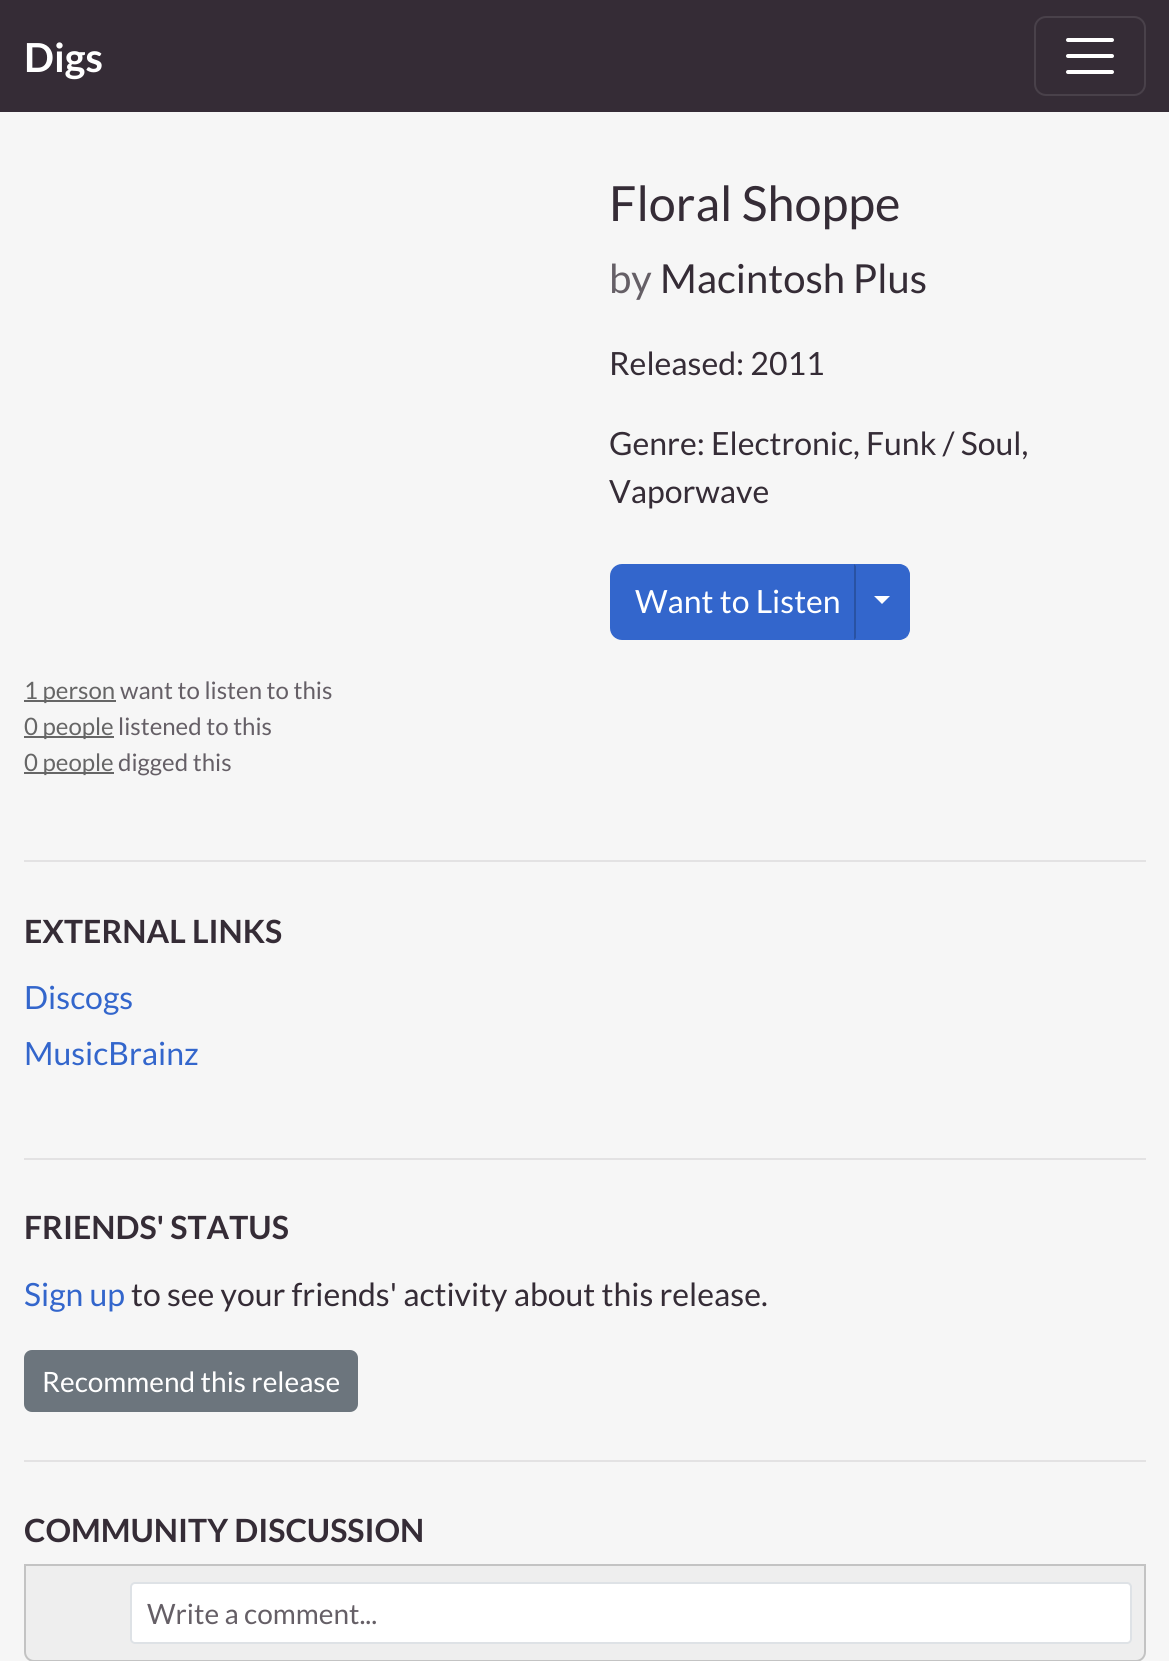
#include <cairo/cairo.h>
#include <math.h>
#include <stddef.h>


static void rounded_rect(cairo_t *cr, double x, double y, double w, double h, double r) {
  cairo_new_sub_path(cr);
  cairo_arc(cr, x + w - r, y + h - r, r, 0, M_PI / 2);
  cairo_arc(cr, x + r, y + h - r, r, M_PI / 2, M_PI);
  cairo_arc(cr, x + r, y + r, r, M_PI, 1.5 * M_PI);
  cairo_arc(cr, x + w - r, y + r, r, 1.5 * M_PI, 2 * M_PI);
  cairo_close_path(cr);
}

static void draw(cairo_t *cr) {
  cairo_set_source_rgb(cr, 246 / 255.0, 246 / 255.0, 246 / 255.0);
  cairo_paint(cr);
  cairo_set_source_rgb(cr, 53 / 255.0, 44 / 255.0, 54 / 255.0);
  cairo_rectangle(cr, 0, 0, 1169, 112);
  cairo_fill(cr);
  rounded_rect(cr, 1035, 17, 110, 78, 11);
  cairo_set_source_rgb(cr, 73 / 255.0, 65 / 255.0, 74 / 255.0);
  cairo_stroke(cr);
  cairo_new_path(cr);
  cairo_move_to(cr, 1068, 40);
  cairo_line_to(cr, 1112, 40);
  cairo_move_to(cr, 1068, 56);
  cairo_line_to(cr, 1112, 56);
  cairo_move_to(cr, 1068, 72);
  cairo_line_to(cr, 1112, 72);
  cairo_set_source_rgb(cr, 1, 1, 1);
  cairo_set_line_width(cr, 4);
  cairo_set_line_cap(cr, CAIRO_LINE_CAP_ROUND);
  cairo_stroke(cr);
  cairo_set_source_rgb(cr, 51 / 255.0, 102 / 255.0, 204 / 255.0);
  rounded_rect(cr, 611, 565, 254, 74, 11);
  cairo_fill_preserve(cr);
  cairo_set_line_width(cr, 2);
  cairo_set_line_cap(cr, CAIRO_LINE_CAP_BUTT);
  cairo_stroke(cr);
  cairo_new_path(cr);
  cairo_move_to(cr, 854, 564);
  cairo_line_to(cr, 898, 564);
  cairo_curve_to(cr, 904.5, 564, 910, 569.5, 910, 576);
  cairo_line_to(cr, 910, 628);
  cairo_curve_to(cr, 910, 634.5, 904.5, 640, 898, 640);
  cairo_line_to(cr, 854, 640);
  cairo_close_path(cr);
  cairo_fill(cr);
  cairo_new_path(cr);
  cairo_move_to(cr, 854, 564);
  cairo_line_to(cr, 856, 566);
  cairo_line_to(cr, 898, 566);
  cairo_curve_to(cr, 901, 566, 904, 567, 905, 569);
  cairo_line_to(cr, 907, 567);
  cairo_curve_to(cr, 904, 565, 902, 564, 898, 564);
  cairo_close_path(cr);
  cairo_fill(cr);
  cairo_new_path(cr);
  cairo_move_to(cr, 910, 628);
  cairo_line_to(cr, 910, 576);
  cairo_curve_to(cr, 910, 572, 909, 570, 907, 567);
  cairo_line_to(cr, 905, 569);
  cairo_curve_to(cr, 907, 570, 908, 573, 908, 576);
  cairo_line_to(cr, 908, 628);
  cairo_curve_to(cr, 908, 631, 907, 634, 905, 635);
  cairo_line_to(cr, 907, 637);
  cairo_curve_to(cr, 909, 634, 910, 632, 910, 628);
  cairo_close_path(cr);
  cairo_fill(cr);
  cairo_new_path(cr);
  cairo_move_to(cr, 898, 640);
  cairo_curve_to(cr, 902, 640, 904, 639, 907, 637);
  cairo_line_to(cr, 905, 635);
  cairo_curve_to(cr, 904, 637, 901, 638, 898, 638);
  cairo_line_to(cr, 856, 638);
  cairo_line_to(cr, 854, 640);
  cairo_close_path(cr);
  cairo_fill(cr);
  cairo_set_source_rgb(cr, 41 / 255.0, 82 / 255.0, 163 / 255.0);
  cairo_new_path(cr);
  cairo_move_to(cr, 856, 566);
  cairo_line_to(cr, 854, 564);
  cairo_line_to(cr, 854, 640);
  cairo_line_to(cr, 856, 638);
  cairo_close_path(cr);
  cairo_fill(cr);
  cairo_set_source_rgb(cr, 1, 1, 1);
  cairo_new_path(cr);
  cairo_move_to(cr, 874, 596);
  cairo_line_to(cr, 890, 596);
  cairo_line_to(cr, 882, 604);
  cairo_close_path(cr);
  cairo_fill(cr);
  cairo_set_source_rgb(cr, 102 / 255.0, 102 / 255.0, 102 / 255.0);
  cairo_rectangle(cr, 24, 700, 92, 2);
  cairo_fill(cr);
  cairo_rectangle(cr, 24, 736, 90, 2);
  cairo_fill(cr);
  cairo_rectangle(cr, 24, 772, 90, 2);
  cairo_fill(cr);
  cairo_set_source_rgb(cr, 227 / 255.0, 226 / 255.0, 227 / 255.0);
  cairo_rectangle(cr, 24, 860, 1122, 2);
  cairo_fill(cr);
  cairo_rectangle(cr, 24, 1158, 1122, 2);
  cairo_fill(cr);
  cairo_set_source_rgb(cr, 108 / 255.0, 117 / 255.0, 125 / 255.0);
  rounded_rect(cr, 25, 1351, 332, 60, 7);
  cairo_fill_preserve(cr);
  cairo_stroke(cr);
  cairo_set_source_rgb(cr, 227 / 255.0, 226 / 255.0, 227 / 255.0);
  cairo_rectangle(cr, 24, 1460, 1122, 2);
  cairo_fill(cr);
  cairo_set_source_rgb(cr, 238 / 255.0, 238 / 255.0, 238 / 255.0);
  cairo_new_path(cr);
  cairo_move_to(cr, 24, 1564);
  cairo_line_to(cr, 1146, 1564);
  cairo_line_to(cr, 1146, 1652);
  cairo_curve_to(cr, 1146, 1657.5, 1141.5, 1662, 1136, 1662);
  cairo_line_to(cr, 34, 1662);
  cairo_curve_to(cr, 28.5, 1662, 24, 1657.5, 24, 1652);
  cairo_close_path(cr);
  cairo_fill(cr);
  cairo_new_path(cr);
  cairo_move_to(cr, 25, 1565);
  cairo_line_to(cr, 1145, 1565);
  cairo_line_to(cr, 1145, 1652);
  cairo_curve_to(cr, 1145, 1657, 1141, 1661, 1136, 1661);
  cairo_line_to(cr, 34, 1661);
  cairo_curve_to(cr, 29, 1661, 25, 1657, 25, 1652);
  cairo_close_path(cr);
  cairo_set_source_rgba(cr, 0, 0, 0, 0.18);
  cairo_stroke(cr);
  cairo_set_source_rgb(cr, 1, 1, 1);
  rounded_rect(cr, 131, 1583, 1000, 60, 4);
  cairo_fill_preserve(cr);
  cairo_set_source_rgb(cr, 222 / 255.0, 226 / 255.0, 230 / 255.0);
  cairo_stroke(cr);
  cairo_select_font_face(cr, "Lato", CAIRO_FONT_SLANT_NORMAL, CAIRO_FONT_WEIGHT_BOLD);
  cairo_set_font_size(cr, 40);
  cairo_set_source_rgb(cr, 1, 1, 1);
  cairo_move_to(cr, 24, 72);
  cairo_show_text(cr, "Digs");
  cairo_select_font_face(cr, "Lato", CAIRO_FONT_SLANT_NORMAL, CAIRO_FONT_WEIGHT_NORMAL);
  cairo_set_font_size(cr, 48.5);
  cairo_set_source_rgb(cr, 53 / 255.0, 44 / 255.0, 54 / 255.0);
  cairo_move_to(cr, 609, 221);
  cairo_show_text(cr, "Floral Shoppe");
  cairo_set_font_size(cr, 40);
  cairo_set_source_rgb(cr, 101 / 255.0, 95 / 255.0, 102 / 255.0);
  cairo_move_to(cr, 609, 293);
  cairo_show_text(cr, "by");
  cairo_set_source_rgb(cr, 53 / 255.0, 44 / 255.0, 54 / 255.0);
  cairo_move_to(cr, 660, 293);
  cairo_show_text(cr, "Macintosh Plus");
  cairo_set_font_size(cr, 32);
  cairo_move_to(cr, 609, 375);
  cairo_show_text(cr, "Released: 2011");
  cairo_move_to(cr, 609, 455);
  cairo_show_text(cr, "Genre: Electronic, Funk / Soul,");
  cairo_move_to(cr, 609, 503);
  cairo_show_text(cr, "Vaporwave");
  cairo_set_source_rgb(cr, 1, 1, 1);
  cairo_move_to(cr, 635, 613);
  cairo_show_text(cr, "Want to Listen");
  cairo_set_font_size(cr, 24);
  cairo_set_source_rgb(cr, 102 / 255.0, 102 / 255.0, 102 / 255.0);
  cairo_move_to(cr, 24, 699);
  cairo_show_text(cr, "1 person");
  cairo_set_source_rgb(cr, 101 / 255.0, 95 / 255.0, 102 / 255.0);
  cairo_move_to(cr, 120, 699);
  cairo_show_text(cr, "want to listen to this");
  cairo_set_source_rgb(cr, 102 / 255.0, 102 / 255.0, 102 / 255.0);
  cairo_move_to(cr, 24, 735);
  cairo_show_text(cr, "0 people");
  cairo_set_source_rgb(cr, 101 / 255.0, 95 / 255.0, 102 / 255.0);
  cairo_move_to(cr, 118, 735);
  cairo_show_text(cr, "listened to this");
  cairo_set_source_rgb(cr, 102 / 255.0, 102 / 255.0, 102 / 255.0);
  cairo_move_to(cr, 24, 771);
  cairo_show_text(cr, "0 people");
  cairo_set_source_rgb(cr, 101 / 255.0, 95 / 255.0, 102 / 255.0);
  cairo_move_to(cr, 118, 771);
  cairo_show_text(cr, "digged this");
  cairo_select_font_face(cr, "Lato", CAIRO_FONT_SLANT_NORMAL, CAIRO_FONT_WEIGHT_BOLD);
  cairo_set_font_size(cr, 32);
  cairo_set_source_rgb(cr, 53 / 255.0, 44 / 255.0, 54 / 255.0);
  cairo_move_to(cr, 24, 943);
  cairo_show_text(cr, "EXTERNAL LINKS");
  cairo_select_font_face(cr, "Lato", CAIRO_FONT_SLANT_NORMAL, CAIRO_FONT_WEIGHT_NORMAL);
  cairo_set_source_rgb(cr, 51 / 255.0, 102 / 255.0, 204 / 255.0);
  cairo_move_to(cr, 24, 1009);
  cairo_show_text(cr, "Discogs");
  cairo_move_to(cr, 24, 1065);
  cairo_show_text(cr, "MusicBrainz");
  cairo_select_font_face(cr, "Lato", CAIRO_FONT_SLANT_NORMAL, CAIRO_FONT_WEIGHT_BOLD);
  cairo_set_source_rgb(cr, 53 / 255.0, 44 / 255.0, 54 / 255.0);
  cairo_move_to(cr, 24, 1239);
  cairo_show_text(cr, "FRIENDS' STATUS");
  cairo_select_font_face(cr, "Lato", CAIRO_FONT_SLANT_NORMAL, CAIRO_FONT_WEIGHT_NORMAL);
  cairo_set_source_rgb(cr, 51 / 255.0, 102 / 255.0, 204 / 255.0);
  cairo_move_to(cr, 24, 1306);
  cairo_show_text(cr, "Sign up");
  cairo_set_source_rgb(cr, 53 / 255.0, 44 / 255.0, 54 / 255.0);
  cairo_move_to(cr, 131, 1306);
  cairo_show_text(cr, "to see your friends' activity about this release.");
  cairo_set_font_size(cr, 28);
  cairo_set_source_rgb(cr, 1, 1, 1);
  cairo_move_to(cr, 42, 1392);
  cairo_show_text(cr, "Recommend this release");
  cairo_select_font_face(cr, "Lato", CAIRO_FONT_SLANT_NORMAL, CAIRO_FONT_WEIGHT_BOLD);
  cairo_set_font_size(cr, 32);
  cairo_set_source_rgb(cr, 53 / 255.0, 44 / 255.0, 54 / 255.0);
  cairo_move_to(cr, 24, 1542);
  cairo_show_text(cr, "COMMUNITY DISCUSSION");
  cairo_select_font_face(cr, "Lato", CAIRO_FONT_SLANT_NORMAL, CAIRO_FONT_WEIGHT_NORMAL);
  cairo_set_font_size(cr, 28);
  cairo_set_source_rgb(cr, 101 / 255.0, 95 / 255.0, 102 / 255.0);
  cairo_move_to(cr, 147, 1624);
  cairo_show_text(cr, "Write a comment...");
}

int main(void) {
  cairo_surface_t *surface = cairo_image_surface_create(CAIRO_FORMAT_RGB24, 1169, 1661);
  cairo_t *cr = cairo_create(surface);
  cairo_font_options_t *options = cairo_font_options_create();
  cairo_font_options_set_hint_metrics(options, CAIRO_HINT_METRICS_OFF);
  cairo_font_options_set_hint_style(options, CAIRO_HINT_STYLE_NONE);
  cairo_set_font_options(cr, options);
  cairo_set_miter_limit(cr, 4);
  draw(cr);
  cairo_surface_write_to_png(surface, "out.png");
  cairo_font_options_destroy(options);
  cairo_destroy(cr);
  cairo_surface_destroy(surface);
  return 0;
}
